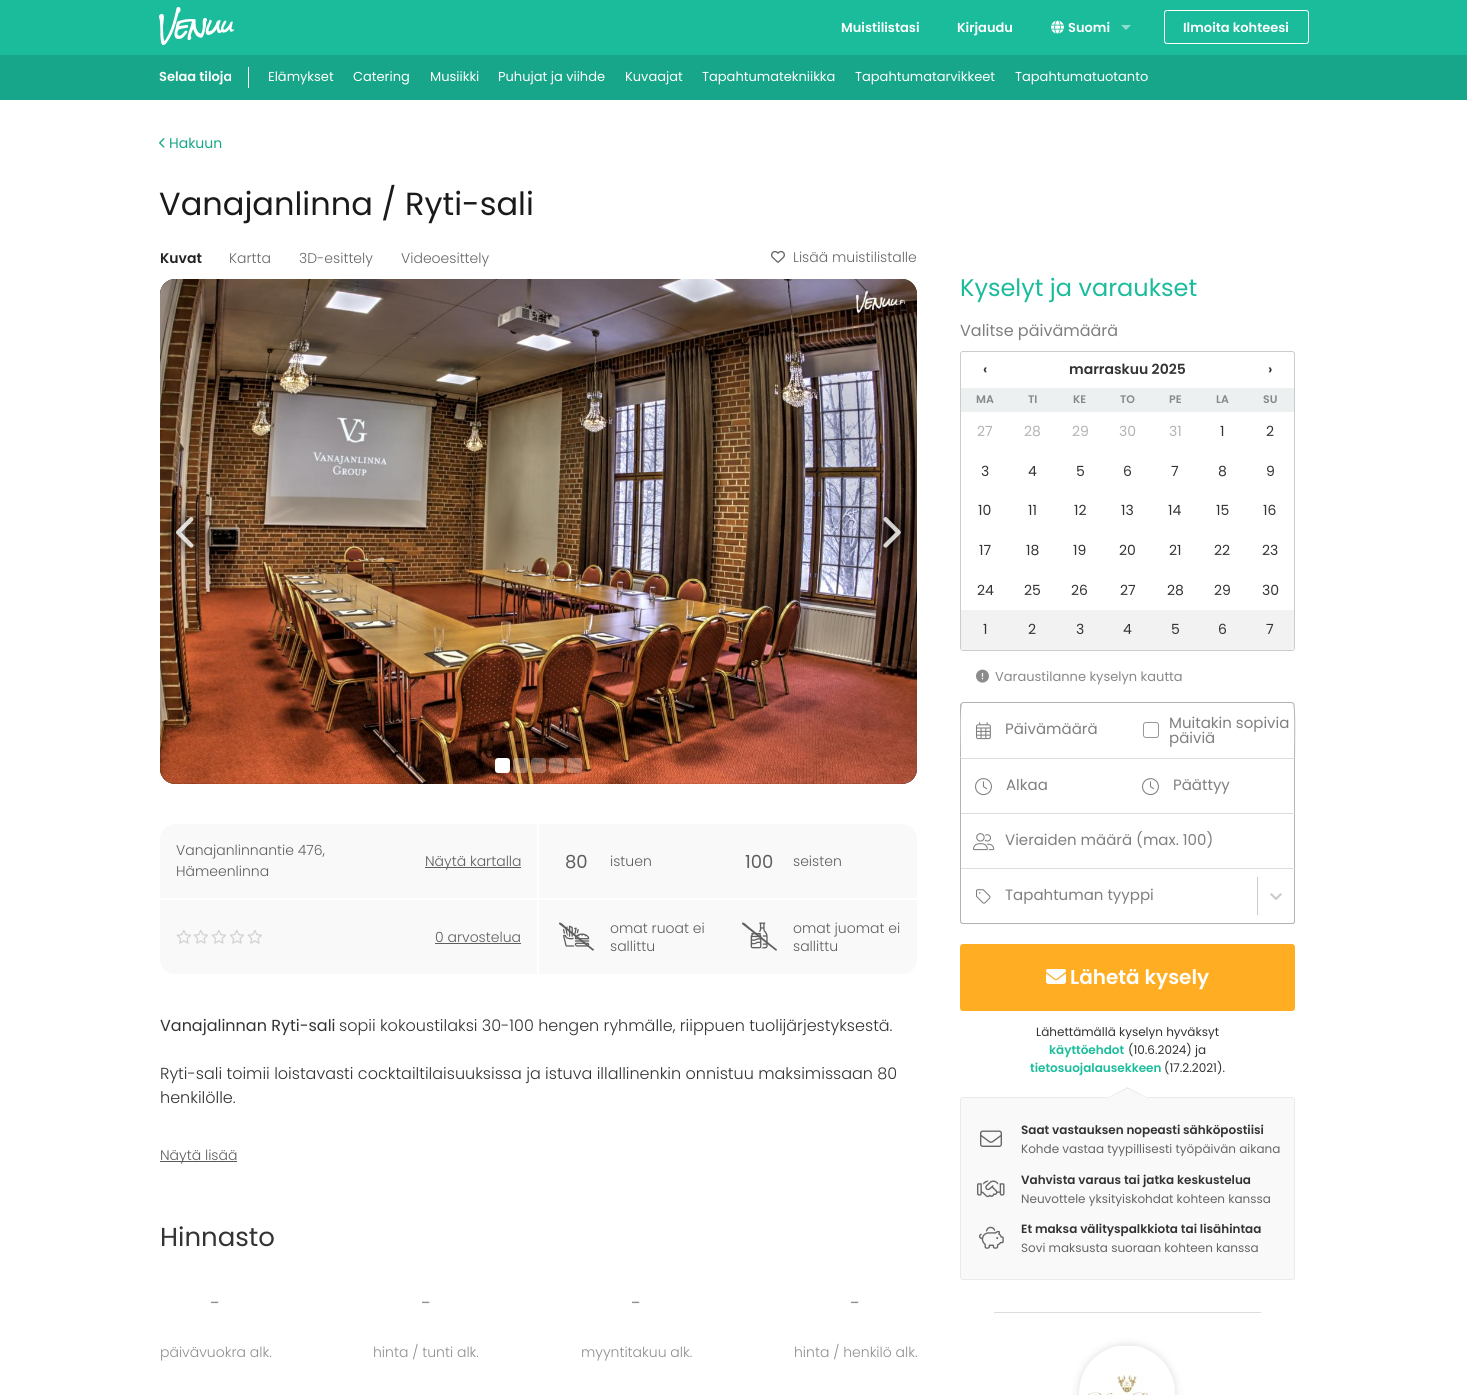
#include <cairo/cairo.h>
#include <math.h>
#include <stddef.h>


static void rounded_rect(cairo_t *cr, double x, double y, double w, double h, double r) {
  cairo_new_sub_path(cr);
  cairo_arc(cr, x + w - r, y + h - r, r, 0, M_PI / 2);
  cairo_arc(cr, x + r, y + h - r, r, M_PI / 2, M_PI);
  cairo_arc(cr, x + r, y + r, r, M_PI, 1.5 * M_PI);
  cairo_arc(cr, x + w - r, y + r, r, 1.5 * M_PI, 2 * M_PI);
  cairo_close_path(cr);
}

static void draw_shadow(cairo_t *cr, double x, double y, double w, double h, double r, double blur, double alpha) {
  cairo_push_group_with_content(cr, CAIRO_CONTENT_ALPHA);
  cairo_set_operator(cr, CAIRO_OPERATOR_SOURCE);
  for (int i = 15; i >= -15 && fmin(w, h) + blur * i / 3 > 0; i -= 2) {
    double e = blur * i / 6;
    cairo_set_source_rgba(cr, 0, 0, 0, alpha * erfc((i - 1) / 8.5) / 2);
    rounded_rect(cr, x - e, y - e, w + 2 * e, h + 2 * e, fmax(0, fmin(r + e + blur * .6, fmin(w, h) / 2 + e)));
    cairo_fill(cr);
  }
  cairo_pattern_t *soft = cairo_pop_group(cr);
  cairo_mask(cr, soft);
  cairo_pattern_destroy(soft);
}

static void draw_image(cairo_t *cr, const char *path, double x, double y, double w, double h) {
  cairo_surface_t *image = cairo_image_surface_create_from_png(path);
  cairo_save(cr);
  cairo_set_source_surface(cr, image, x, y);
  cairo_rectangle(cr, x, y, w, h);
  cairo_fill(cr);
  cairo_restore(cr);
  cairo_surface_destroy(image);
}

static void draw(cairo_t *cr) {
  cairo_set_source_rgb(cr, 1, 1, 1);
  cairo_paint(cr);
  cairo_set_source_rgb(cr, 26 / 255.0, 188 / 255.0, 156 / 255.0);
  cairo_rectangle(cr, 0, 0, 1467, 55);
  cairo_fill(cr);
  draw_image(cr, "images/1.png", 159, 7, 75, 38);
  draw_image(cr, "images/2.png", 1051, 20, 13, 14);
  cairo_set_source_rgb(cr, 141 / 255.0, 222 / 255.0, 206 / 255.0);
  cairo_new_path(cr);
  cairo_move_to(cr, 1121, 25);
  cairo_line_to(cr, 1131, 25);
  cairo_line_to(cr, 1126, 30);
  cairo_close_path(cr);
  cairo_fill(cr);
  rounded_rect(cr, 1164.5, 10.5, 144, 33, 2.5);
  cairo_set_source_rgb(cr, 1, 1, 1);
  cairo_set_line_width(cr, 1);
  cairo_stroke(cr);
  cairo_set_source_rgb(cr, 23 / 255.0, 166 / 255.0, 137 / 255.0);
  cairo_rectangle(cr, 0, 55, 1467, 45);
  cairo_fill(cr);
  cairo_set_source_rgb(cr, 1, 1, 1);
  cairo_rectangle(cr, 248, 67, 1, 21);
  cairo_fill(cr);
  draw_image(cr, "images/3.png", 159, 138, 6, 10);
  draw_image(cr, "images/4.png", 771, 250, 14, 13);
  cairo_set_source_rgb(cr, 34 / 255.0, 34 / 255.0, 34 / 255.0);
  rounded_rect(cr, 160, 279, 757, 505, 15);
  cairo_fill(cr);
  draw_image(cr, "images/5.png", 160, 279, 757, 505);
  draw_image(cr, "images/6.png", 176, 517, 18, 31);
  draw_image(cr, "images/7.png", 883, 517, 18, 31);
  cairo_set_source_rgb(cr, 1, 1, 1);
  rounded_rect(cr, 495, 758, 15, 15, 3);
  cairo_fill(cr);
  cairo_set_source_rgba(cr, 1, 1, 1, 0.3);
  rounded_rect(cr, 513, 758, 15, 15, 3);
  cairo_fill(cr);
  rounded_rect(cr, 531, 758, 15, 15, 3);
  cairo_fill(cr);
  rounded_rect(cr, 549, 758, 15, 15, 3);
  cairo_fill(cr);
  rounded_rect(cr, 567, 758, 15, 15, 3);
  cairo_fill(cr);
  cairo_set_source_rgb(cr, 249 / 255.0, 249 / 255.0, 249 / 255.0);
  cairo_new_path(cr);
  cairo_move_to(cr, 175, 824);
  cairo_line_to(cr, 537, 824);
  cairo_line_to(cr, 537, 898);
  cairo_line_to(cr, 160, 898);
  cairo_line_to(cr, 160, 839);
  cairo_curve_to(cr, 160, 830.5, 166.5, 824, 175, 824);
  cairo_close_path(cr);
  cairo_fill(cr);
  cairo_set_source_rgb(cr, 94 / 255.0, 94 / 255.0, 94 / 255.0);
  cairo_rectangle(cr, 425, 867, 96, 1);
  cairo_fill(cr);
  cairo_set_source_rgb(cr, 249 / 255.0, 249 / 255.0, 249 / 255.0);
  cairo_new_path(cr);
  cairo_move_to(cr, 539, 824);
  cairo_line_to(cr, 902, 824);
  cairo_curve_to(cr, 910.5, 824, 917, 830.5, 917, 839);
  cairo_line_to(cr, 917, 898);
  cairo_line_to(cr, 539, 898);
  cairo_close_path(cr);
  cairo_fill(cr);
  cairo_new_path(cr);
  cairo_move_to(cr, 160, 900);
  cairo_line_to(cr, 537, 900);
  cairo_line_to(cr, 537, 974);
  cairo_line_to(cr, 175, 974);
  cairo_curve_to(cr, 166.5, 974, 160, 967.5, 160, 959);
  cairo_close_path(cr);
  cairo_fill(cr);
  draw_image(cr, "images/8.png", 176, 929, 15, 15);
  draw_image(cr, "images/8.png", 193, 929, 15, 15);
  draw_image(cr, "images/8.png", 211, 929, 15, 15);
  draw_image(cr, "images/8.png", 229, 929, 15, 15);
  draw_image(cr, "images/8.png", 247, 929, 15, 15);
  cairo_set_source_rgb(cr, 94 / 255.0, 94 / 255.0, 94 / 255.0);
  cairo_rectangle(cr, 435, 943, 86, 1);
  cairo_fill(cr);
  cairo_set_source_rgb(cr, 249 / 255.0, 249 / 255.0, 249 / 255.0);
  cairo_new_path(cr);
  cairo_move_to(cr, 539, 900);
  cairo_line_to(cr, 917, 900);
  cairo_line_to(cr, 917, 959);
  cairo_curve_to(cr, 917, 967.5, 910.5, 974, 902, 974);
  cairo_line_to(cr, 539, 974);
  cairo_close_path(cr);
  cairo_fill(cr);
  draw_image(cr, "images/9.png", 563, 925, 27, 22);
  cairo_set_source_rgb(cr, 94 / 255.0, 94 / 255.0, 94 / 255.0);
  cairo_new_path(cr);
  cairo_move_to(cr, 559, 923);
  cairo_curve_to(cr, 560.5, 921, 565, 926.5, 566, 927);
  cairo_line_to(cr, 594, 949.5);
  cairo_line_to(cr, 594, 950);
  cairo_line_to(cr, 593.5, 950.5);
  cairo_line_to(cr, 592.5, 950.5);
  cairo_line_to(cr, 559, 924);
  cairo_close_path(cr);
  cairo_fill(cr);
  draw_image(cr, "images/10.png", 750, 922, 18, 27);
  cairo_new_path(cr);
  cairo_move_to(cr, 742, 923);
  cairo_curve_to(cr, 743.5, 921, 748, 926.5, 749, 927);
  cairo_line_to(cr, 777, 949.5);
  cairo_line_to(cr, 777, 950);
  cairo_line_to(cr, 776.5, 950.5);
  cairo_line_to(cr, 775.5, 950.5);
  cairo_line_to(cr, 742, 924);
  cairo_close_path(cr);
  cairo_fill(cr);
  cairo_set_source_rgb(cr, 90 / 255.0, 90 / 255.0, 90 / 255.0);
  cairo_rectangle(cr, 160, 1161, 77, 1);
  cairo_fill(cr);
  rounded_rect(cr, 960.5, 351.5, 334, 299, 2.5);
  cairo_set_source_rgb(cr, 204 / 255.0, 204 / 255.0, 204 / 255.0);
  cairo_stroke(cr);
  cairo_set_source_rgb(cr, 236 / 255.0, 240 / 255.0, 241 / 255.0);
  cairo_rectangle(cr, 961, 388, 333, 24);
  cairo_fill(cr);
  cairo_set_source_rgb(cr, 242 / 255.0, 242 / 255.0, 242 / 255.0);
  cairo_rectangle(cr, 961, 610, 333, 40);
  cairo_fill(cr);
  draw_image(cr, "images/11.png", 976, 669, 13, 14);
  cairo_set_source_rgb(cr, 179 / 255.0, 179 / 255.0, 179 / 255.0);
  cairo_new_path(cr);
  cairo_move_to(cr, 963, 702);
  cairo_line_to(cr, 961, 703);
  cairo_line_to(cr, 962, 704);
  cairo_line_to(cr, 963, 703);
  cairo_line_to(cr, 1127, 703);
  cairo_line_to(cr, 1127, 702);
  cairo_close_path(cr);
  cairo_fill(cr);
  cairo_new_path(cr);
  cairo_move_to(cr, 960, 758);
  cairo_line_to(cr, 961, 757);
  cairo_curve_to(cr, 961, 751, 960, 705, 962, 704);
  cairo_line_to(cr, 961, 703);
  cairo_line_to(cr, 960, 705);
  cairo_close_path(cr);
  cairo_fill(cr);
  draw_image(cr, "images/12.png", 976, 722, 15, 18);
  cairo_new_path(cr);
  cairo_move_to(cr, 1127, 702);
  cairo_line_to(cr, 1127, 703);
  cairo_line_to(cr, 1292, 703);
  cairo_line_to(cr, 1293, 704);
  cairo_line_to(cr, 1294, 703);
  cairo_line_to(cr, 1292, 702);
  cairo_close_path(cr);
  cairo_fill(cr);
  cairo_new_path(cr);
  cairo_move_to(cr, 1294, 757);
  cairo_curve_to(cr, 1294, 751, 1295, 705, 1293, 704);
  cairo_line_to(cr, 1294, 703);
  cairo_curve_to(cr, 1296, 705, 1295, 752, 1295, 758);
  cairo_close_path(cr);
  cairo_fill(cr);
  rounded_rect(cr, 1143.5, 722.5, 15, 15, 2.5);
  cairo_set_source_rgb(cr, 151 / 255.0, 151 / 255.0, 151 / 255.0);
  cairo_stroke(cr);
  cairo_set_source_rgb(cr, 221 / 255.0, 221 / 255.0, 221 / 255.0);
  cairo_rectangle(cr, 960, 758, 335, 1);
  cairo_fill(cr);
  cairo_set_source_rgb(cr, 179 / 255.0, 179 / 255.0, 179 / 255.0);
  cairo_rectangle(cr, 1294, 758, 1, 111);
  cairo_fill(cr);
  cairo_set_source_rgb(cr, 221 / 255.0, 221 / 255.0, 221 / 255.0);
  cairo_rectangle(cr, 960, 813, 335, 1);
  cairo_fill(cr);
  cairo_set_source_rgb(cr, 179 / 255.0, 179 / 255.0, 179 / 255.0);
  cairo_rectangle(cr, 960, 758, 1, 56);
  cairo_fill(cr);
  draw_image(cr, "images/13.png", 975, 778, 17, 18);
  draw_image(cr, "images/13.png", 1142, 778, 17, 18);
  cairo_set_source_rgb(cr, 221 / 255.0, 221 / 255.0, 221 / 255.0);
  cairo_rectangle(cr, 960, 868, 335, 1);
  cairo_fill(cr);
  cairo_set_source_rgb(cr, 179 / 255.0, 179 / 255.0, 179 / 255.0);
  cairo_rectangle(cr, 960, 814, 1, 55);
  cairo_fill(cr);
  draw_image(cr, "images/14.png", 973, 833, 22, 18);
  cairo_set_fill_rule(cr, CAIRO_FILL_RULE_EVEN_ODD);
  cairo_new_path(cr);
  cairo_move_to(cr, 960, 869);
  cairo_line_to(cr, 1295, 869);
  cairo_line_to(cr, 1295, 921);
  cairo_curve_to(cr, 1295, 923, 1294, 924, 1292, 924);
  cairo_line_to(cr, 963, 924);
  cairo_curve_to(cr, 961, 924, 960, 923, 960, 921);
  cairo_close_path(cr);
  cairo_move_to(cr, 961, 869);
  cairo_line_to(cr, 1294, 869);
  cairo_line_to(cr, 1294, 921);
  cairo_curve_to(cr, 1294, 922, 1293, 923, 1292, 923);
  cairo_line_to(cr, 963, 923);
  cairo_curve_to(cr, 962, 923, 961, 922, 961, 921);
  cairo_close_path(cr);
  cairo_fill(cr);
  draw_image(cr, "images/15.png", 976, 889, 15, 15);
  cairo_set_source_rgb(cr, 204 / 255.0, 204 / 255.0, 204 / 255.0);
  cairo_rectangle(cr, 1257, 877, 1, 38);
  cairo_fill(cr);
  draw_image(cr, "images/16.png", 1270, 893, 12, 7);
  cairo_set_source_rgb(cr, 1, 174 / 255.0, 35 / 255.0);
  rounded_rect(cr, 960, 944, 335, 67, 3);
  cairo_fill(cr);
  draw_image(cr, "images/17.png", 1046, 969, 20, 15);
  cairo_set_source_rgb(cr, 249 / 255.0, 249 / 255.0, 249 / 255.0);
  rounded_rect(cr, 960.5, 1097.5, 334, 182, 2.5);
  cairo_fill_preserve(cr);
  cairo_set_source_rgb(cr, 234 / 255.0, 234 / 255.0, 234 / 255.0);
  cairo_stroke(cr);
  cairo_set_source_rgb(cr, 249 / 255.0, 249 / 255.0, 249 / 255.0);
  cairo_set_fill_rule(cr, CAIRO_FILL_RULE_WINDING);
  cairo_new_path(cr);
  cairo_move_to(cr, 1127, 1088);
  cairo_line_to(cr, 1149, 1098);
  cairo_line_to(cr, 1127, 1109);
  cairo_line_to(cr, 1106, 1098);
  cairo_close_path(cr);
  cairo_fill(cr);
  cairo_set_source_rgb(cr, 221 / 255.0, 221 / 255.0, 221 / 255.0);
  cairo_new_path(cr);
  cairo_move_to(cr, 1127.5, 1087.5);
  cairo_line_to(cr, 1148.5, 1098.5);
  cairo_line_to(cr, 1148, 1098.5);
  cairo_line_to(cr, 1127, 1088);
  cairo_close_path(cr);
  cairo_fill(cr);
  cairo_new_path(cr);
  cairo_move_to(cr, 1127.5, 1087.5);
  cairo_line_to(cr, 1128, 1088);
  cairo_line_to(cr, 1107, 1098.5);
  cairo_line_to(cr, 1106.5, 1098.5);
  cairo_close_path(cr);
  cairo_fill(cr);
  draw_image(cr, "images/18.png", 980, 1130, 22, 17);
  draw_image(cr, "images/19.png", 977, 1180, 28, 18);
  draw_image(cr, "images/20.png", 979, 1226, 25, 23);
  cairo_rectangle(cr, 994, 1312, 267, 1);
  cairo_fill(cr);
  cairo_set_source_rgb(cr, 221 / 255.0, 221 / 255.0, 221 / 255.0);
  draw_shadow(cr, 1079, 1345, 96, 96, 48, 4, 1);
  draw_image(cr, "images/21.png", 1079, 1346, 96, 49);
  cairo_select_font_face(cr, "Poppins SemiBold", CAIRO_FONT_SLANT_NORMAL, CAIRO_FONT_WEIGHT_NORMAL);
  cairo_set_font_size(cr, 13);
  cairo_set_source_rgb(cr, 1, 1, 1);
  cairo_move_to(cr, 841, 32);
  cairo_show_text(cr, "Muistilistasi");
  cairo_move_to(cr, 957, 32);
  cairo_show_text(cr, "Kirjaudu");
  cairo_move_to(cr, 1068, 32);
  cairo_show_text(cr, "Suomi");
  cairo_move_to(cr, 1183, 32);
  cairo_show_text(cr, "Ilmoita kohteesi");
  cairo_move_to(cr, 159, 81);
  cairo_show_text(cr, "Selaa tiloja");
  cairo_select_font_face(cr, "Poppins", CAIRO_FONT_SLANT_NORMAL, CAIRO_FONT_WEIGHT_NORMAL);
  cairo_move_to(cr, 268, 81);
  cairo_show_text(cr, "Elämykset");
  cairo_move_to(cr, 353, 81);
  cairo_show_text(cr, "Catering");
  cairo_move_to(cr, 430, 81);
  cairo_show_text(cr, "Musiikki");
  cairo_move_to(cr, 498, 81);
  cairo_show_text(cr, "Puhujat ja viihde");
  cairo_move_to(cr, 625, 81);
  cairo_show_text(cr, "Kuvaajat");
  cairo_move_to(cr, 702, 81);
  cairo_show_text(cr, "Tapahtumatekniikka");
  cairo_move_to(cr, 855, 81);
  cairo_show_text(cr, "Tapahtumatarvikkeet");
  cairo_move_to(cr, 1015, 81);
  cairo_show_text(cr, "Tapahtumatuotanto");
  cairo_set_font_size(cr, 14);
  cairo_set_source_rgb(cr, 23 / 255.0, 166 / 255.0, 137 / 255.0);
  cairo_move_to(cr, 169, 148);
  cairo_show_text(cr, "Hakuun");
  cairo_set_font_size(cr, 32);
  cairo_set_source_rgb(cr, 26 / 255.0, 26 / 255.0, 26 / 255.0);
  cairo_move_to(cr, 159, 215);
  cairo_show_text(cr, "Vanajanlinna / Ryti-sali");
  cairo_select_font_face(cr, "Poppins SemiBold", CAIRO_FONT_SLANT_NORMAL, CAIRO_FONT_WEIGHT_NORMAL);
  cairo_set_font_size(cr, 14);
  cairo_set_source_rgb(cr, 34 / 255.0, 34 / 255.0, 34 / 255.0);
  cairo_move_to(cr, 160, 263);
  cairo_show_text(cr, "Kuvat");
  cairo_select_font_face(cr, "Poppins Light", CAIRO_FONT_SLANT_NORMAL, CAIRO_FONT_WEIGHT_NORMAL);
  cairo_set_source_rgb(cr, 102 / 255.0, 102 / 255.0, 102 / 255.0);
  cairo_move_to(cr, 229, 263);
  cairo_show_text(cr, "Kartta");
  cairo_move_to(cr, 299, 263);
  cairo_show_text(cr, "3D-esittely");
  cairo_move_to(cr, 401, 263);
  cairo_show_text(cr, "Videoesittely");
  cairo_move_to(cr, 793, 262);
  cairo_show_text(cr, "Lisää muistilistalle");
  cairo_set_source_rgb(cr, 94 / 255.0, 94 / 255.0, 94 / 255.0);
  cairo_move_to(cr, 176, 855);
  cairo_show_text(cr, "Vanajanlinnantie 476,");
  cairo_move_to(cr, 176, 876);
  cairo_show_text(cr, "Hämeenlinna");
  cairo_move_to(cr, 425, 866);
  cairo_show_text(cr, "Näytä kartalla");
  cairo_select_font_face(cr, "Poppins", CAIRO_FONT_SLANT_NORMAL, CAIRO_FONT_WEIGHT_NORMAL);
  cairo_set_font_size(cr, 18);
  cairo_move_to(cr, 565, 868);
  cairo_show_text(cr, "80");
  cairo_select_font_face(cr, "Poppins Light", CAIRO_FONT_SLANT_NORMAL, CAIRO_FONT_WEIGHT_NORMAL);
  cairo_set_font_size(cr, 14);
  cairo_move_to(cr, 610, 866);
  cairo_show_text(cr, "istuen");
  cairo_select_font_face(cr, "Poppins", CAIRO_FONT_SLANT_NORMAL, CAIRO_FONT_WEIGHT_NORMAL);
  cairo_set_font_size(cr, 18);
  cairo_move_to(cr, 745, 868);
  cairo_show_text(cr, "100");
  cairo_select_font_face(cr, "Poppins Light", CAIRO_FONT_SLANT_NORMAL, CAIRO_FONT_WEIGHT_NORMAL);
  cairo_set_font_size(cr, 14);
  cairo_move_to(cr, 793, 866);
  cairo_show_text(cr, "seisten");
  cairo_move_to(cr, 435, 942);
  cairo_show_text(cr, "0 arvostelua");
  cairo_move_to(cr, 610, 933);
  cairo_show_text(cr, "omat ruoat ei");
  cairo_move_to(cr, 610, 951);
  cairo_show_text(cr, "sallittu");
  cairo_move_to(cr, 793, 933);
  cairo_show_text(cr, "omat juomat ei");
  cairo_move_to(cr, 793, 951);
  cairo_show_text(cr, "sallittu");
  cairo_select_font_face(cr, "Poppins", CAIRO_FONT_SLANT_NORMAL, CAIRO_FONT_WEIGHT_NORMAL);
  cairo_set_font_size(cr, 16);
  cairo_set_source_rgb(cr, 51 / 255.0, 51 / 255.0, 51 / 255.0);
  cairo_move_to(cr, 160, 1031);
  cairo_show_text(cr, "Vanajalinnan Ryti-sali");
  cairo_select_font_face(cr, "Poppins Light", CAIRO_FONT_SLANT_NORMAL, CAIRO_FONT_WEIGHT_NORMAL);
  cairo_move_to(cr, 339, 1031);
  cairo_show_text(cr, "sopii kokoustilaksi 30-100 hengen ryhmälle, riippuen tuolijärjestyksestä.");
  cairo_move_to(cr, 160, 1079);
  cairo_show_text(cr, "Ryti-sali toimii loistavasti cocktailtilaisuuksissa ja istuva illallinenkin onnistuu maksimissaan 80");
  cairo_move_to(cr, 160, 1103);
  cairo_show_text(cr, "henkilölle.");
  cairo_set_font_size(cr, 14);
  cairo_set_source_rgb(cr, 94 / 255.0, 94 / 255.0, 94 / 255.0);
  cairo_move_to(cr, 160, 1160);
  cairo_show_text(cr, "Näytä lisää");
  cairo_select_font_face(cr, "Poppins", CAIRO_FONT_SLANT_NORMAL, CAIRO_FONT_WEIGHT_NORMAL);
  cairo_set_font_size(cr, 26);
  cairo_set_source_rgb(cr, 51 / 255.0, 51 / 255.0, 51 / 255.0);
  cairo_move_to(cr, 160, 1246);
  cairo_show_text(cr, "Hinnasto");
  cairo_set_font_size(cr, 18);
  cairo_set_source_rgb(cr, 143 / 255.0, 143 / 255.0, 143 / 255.0);
  cairo_move_to(cr, 210, 1309);
  cairo_show_text(cr, "-");
  cairo_select_font_face(cr, "Poppins Light", CAIRO_FONT_SLANT_NORMAL, CAIRO_FONT_WEIGHT_NORMAL);
  cairo_set_font_size(cr, 14);
  cairo_move_to(cr, 160, 1357);
  cairo_show_text(cr, "päivävuokra alk.");
  cairo_select_font_face(cr, "Poppins", CAIRO_FONT_SLANT_NORMAL, CAIRO_FONT_WEIGHT_NORMAL);
  cairo_set_font_size(cr, 18);
  cairo_move_to(cr, 421, 1309);
  cairo_show_text(cr, "-");
  cairo_select_font_face(cr, "Poppins Light", CAIRO_FONT_SLANT_NORMAL, CAIRO_FONT_WEIGHT_NORMAL);
  cairo_set_font_size(cr, 14);
  cairo_move_to(cr, 373, 1357);
  cairo_show_text(cr, "hinta / tunti alk.");
  cairo_select_font_face(cr, "Poppins", CAIRO_FONT_SLANT_NORMAL, CAIRO_FONT_WEIGHT_NORMAL);
  cairo_set_font_size(cr, 18);
  cairo_move_to(cr, 631, 1309);
  cairo_show_text(cr, "-");
  cairo_select_font_face(cr, "Poppins Light", CAIRO_FONT_SLANT_NORMAL, CAIRO_FONT_WEIGHT_NORMAL);
  cairo_set_font_size(cr, 14);
  cairo_move_to(cr, 581, 1357);
  cairo_show_text(cr, "myyntitakuu alk.");
  cairo_select_font_face(cr, "Poppins", CAIRO_FONT_SLANT_NORMAL, CAIRO_FONT_WEIGHT_NORMAL);
  cairo_set_font_size(cr, 18);
  cairo_move_to(cr, 850, 1309);
  cairo_show_text(cr, "-");
  cairo_select_font_face(cr, "Poppins Light", CAIRO_FONT_SLANT_NORMAL, CAIRO_FONT_WEIGHT_NORMAL);
  cairo_set_font_size(cr, 14);
  cairo_move_to(cr, 794, 1357);
  cairo_show_text(cr, "hinta / henkilö alk.");
  cairo_select_font_face(cr, "Poppins", CAIRO_FONT_SLANT_NORMAL, CAIRO_FONT_WEIGHT_NORMAL);
  cairo_set_font_size(cr, 24);
  cairo_set_source_rgb(cr, 26 / 255.0, 188 / 255.0, 156 / 255.0);
  cairo_move_to(cr, 960, 296);
  cairo_show_text(cr, "Kyselyt ja varaukset");
  cairo_set_font_size(cr, 16);
  cairo_set_source_rgb(cr, 127 / 255.0, 127 / 255.0, 127 / 255.0);
  cairo_move_to(cr, 960, 336);
  cairo_show_text(cr, "Valitse päivämäärä");
  cairo_select_font_face(cr, "Poppins SemiBold", CAIRO_FONT_SLANT_NORMAL, CAIRO_FONT_WEIGHT_NORMAL);
  cairo_set_font_size(cr, 14);
  cairo_set_source_rgb(cr, 51 / 255.0, 51 / 255.0, 51 / 255.0);
  cairo_move_to(cr, 983, 374);
  cairo_show_text(cr, "‹");
  cairo_move_to(cr, 1069, 374);
  cairo_show_text(cr, "marraskuu 2025");
  cairo_move_to(cr, 1268, 374);
  cairo_show_text(cr, "›");
  cairo_set_font_size(cr, 11);
  cairo_set_source_rgb(cr, 136 / 255.0, 136 / 255.0, 136 / 255.0);
  cairo_move_to(cr, 976, 403);
  cairo_show_text(cr, "MA");
  cairo_move_to(cr, 1028, 403);
  cairo_show_text(cr, "TI");
  cairo_move_to(cr, 1073, 403);
  cairo_show_text(cr, "KE");
  cairo_move_to(cr, 1120, 403);
  cairo_show_text(cr, "TO");
  cairo_move_to(cr, 1169, 403);
  cairo_show_text(cr, "PE");
  cairo_move_to(cr, 1216, 403);
  cairo_show_text(cr, "LA");
  cairo_move_to(cr, 1263, 403);
  cairo_show_text(cr, "SU");
  cairo_select_font_face(cr, "Poppins", CAIRO_FONT_SLANT_NORMAL, CAIRO_FONT_WEIGHT_NORMAL);
  cairo_set_font_size(cr, 14);
  cairo_set_source_rgb(cr, 179 / 255.0, 179 / 255.0, 179 / 255.0);
  cairo_move_to(cr, 977, 436);
  cairo_show_text(cr, "27");
  cairo_move_to(cr, 1024, 436);
  cairo_show_text(cr, "28");
  cairo_move_to(cr, 1072, 436);
  cairo_show_text(cr, "29");
  cairo_move_to(cr, 1119, 436);
  cairo_show_text(cr, "30");
  cairo_move_to(cr, 1169, 436);
  cairo_show_text(cr, "31");
  cairo_set_source_rgb(cr, 51 / 255.0, 51 / 255.0, 51 / 255.0);
  cairo_move_to(cr, 1220, 436);
  cairo_show_text(cr, "1");
  cairo_move_to(cr, 1266, 436);
  cairo_show_text(cr, "2");
  cairo_move_to(cr, 981, 476);
  cairo_show_text(cr, "3");
  cairo_move_to(cr, 1028, 476);
  cairo_show_text(cr, "4");
  cairo_move_to(cr, 1076, 476);
  cairo_show_text(cr, "5");
  cairo_move_to(cr, 1123, 476);
  cairo_show_text(cr, "6");
  cairo_move_to(cr, 1171, 476);
  cairo_show_text(cr, "7");
  cairo_move_to(cr, 1218, 476);
  cairo_show_text(cr, "8");
  cairo_move_to(cr, 1266, 476);
  cairo_show_text(cr, "9");
  cairo_move_to(cr, 978, 515);
  cairo_show_text(cr, "10");
  cairo_move_to(cr, 1028, 515);
  cairo_show_text(cr, "11");
  cairo_move_to(cr, 1074, 515);
  cairo_show_text(cr, "12");
  cairo_move_to(cr, 1121, 515);
  cairo_show_text(cr, "13");
  cairo_move_to(cr, 1168, 515);
  cairo_show_text(cr, "14");
  cairo_move_to(cr, 1216, 515);
  cairo_show_text(cr, "15");
  cairo_move_to(cr, 1263, 515);
  cairo_show_text(cr, "16");
  cairo_move_to(cr, 979, 555);
  cairo_show_text(cr, "17");
  cairo_move_to(cr, 1026, 555);
  cairo_show_text(cr, "18");
  cairo_move_to(cr, 1073, 555);
  cairo_show_text(cr, "19");
  cairo_move_to(cr, 1119, 555);
  cairo_show_text(cr, "20");
  cairo_move_to(cr, 1169, 555);
  cairo_show_text(cr, "21");
  cairo_move_to(cr, 1214, 555);
  cairo_show_text(cr, "22");
  cairo_move_to(cr, 1262, 555);
  cairo_show_text(cr, "23");
  cairo_move_to(cr, 977, 595);
  cairo_show_text(cr, "24");
  cairo_move_to(cr, 1024, 595);
  cairo_show_text(cr, "25");
  cairo_move_to(cr, 1071, 595);
  cairo_show_text(cr, "26");
  cairo_move_to(cr, 1120, 595);
  cairo_show_text(cr, "27");
  cairo_move_to(cr, 1167, 595);
  cairo_show_text(cr, "28");
  cairo_move_to(cr, 1214, 595);
  cairo_show_text(cr, "29");
  cairo_move_to(cr, 1262, 595);
  cairo_show_text(cr, "30");
  cairo_move_to(cr, 983, 634);
  cairo_show_text(cr, "1");
  cairo_move_to(cr, 1028, 634);
  cairo_show_text(cr, "2");
  cairo_move_to(cr, 1076, 634);
  cairo_show_text(cr, "3");
  cairo_move_to(cr, 1123, 634);
  cairo_show_text(cr, "4");
  cairo_move_to(cr, 1171, 634);
  cairo_show_text(cr, "5");
  cairo_move_to(cr, 1218, 634);
  cairo_show_text(cr, "6");
  cairo_move_to(cr, 1266, 634);
  cairo_show_text(cr, "7");
  cairo_set_font_size(cr, 13);
  cairo_set_source_rgb(cr, 136 / 255.0, 136 / 255.0, 136 / 255.0);
  cairo_move_to(cr, 995, 681);
  cairo_show_text(cr, "Varaustilanne kyselyn kautta");
  cairo_set_font_size(cr, 15);
  cairo_set_source_rgb(cr, 127 / 255.0, 127 / 255.0, 127 / 255.0);
  cairo_move_to(cr, 1005, 734);
  cairo_show_text(cr, "Päivämäärä");
  cairo_move_to(cr, 1169, 728);
  cairo_show_text(cr, "Muitakin sopivia");
  cairo_move_to(cr, 1169, 743);
  cairo_show_text(cr, "päiviä");
  cairo_move_to(cr, 1006, 790);
  cairo_show_text(cr, "Alkaa");
  cairo_move_to(cr, 1173, 790);
  cairo_show_text(cr, "Päättyy");
  cairo_move_to(cr, 1005, 845);
  cairo_show_text(cr, "Vieraiden määrä (max. 100)");
  cairo_move_to(cr, 1005, 900);
  cairo_show_text(cr, "Tapahtuman tyyppi");
  cairo_select_font_face(cr, "Poppins SemiBold", CAIRO_FONT_SLANT_NORMAL, CAIRO_FONT_WEIGHT_NORMAL);
  cairo_set_font_size(cr, 20);
  cairo_set_source_rgb(cr, 1, 1, 1);
  cairo_move_to(cr, 1070, 984);
  cairo_show_text(cr, "Lähetä kysely");
  cairo_select_font_face(cr, "Poppins", CAIRO_FONT_SLANT_NORMAL, CAIRO_FONT_WEIGHT_NORMAL);
  cairo_set_font_size(cr, 12);
  cairo_set_source_rgb(cr, 51 / 255.0, 51 / 255.0, 51 / 255.0);
  cairo_move_to(cr, 1036, 1036);
  cairo_show_text(cr, "Lähettämällä kyselyn hyväksyt");
  cairo_select_font_face(cr, "Poppins SemiBold", CAIRO_FONT_SLANT_NORMAL, CAIRO_FONT_WEIGHT_NORMAL);
  cairo_set_source_rgb(cr, 26 / 255.0, 188 / 255.0, 156 / 255.0);
  cairo_move_to(cr, 1049, 1054);
  cairo_show_text(cr, "käyttöehdot");
  cairo_select_font_face(cr, "Poppins", CAIRO_FONT_SLANT_NORMAL, CAIRO_FONT_WEIGHT_NORMAL);
  cairo_set_source_rgb(cr, 51 / 255.0, 51 / 255.0, 51 / 255.0);
  cairo_move_to(cr, 1128, 1054);
  cairo_show_text(cr, "(10.6.2024) ja");
  cairo_select_font_face(cr, "Poppins SemiBold", CAIRO_FONT_SLANT_NORMAL, CAIRO_FONT_WEIGHT_NORMAL);
  cairo_set_source_rgb(cr, 26 / 255.0, 188 / 255.0, 156 / 255.0);
  cairo_move_to(cr, 1030, 1072);
  cairo_show_text(cr, "tietosuojalausekkeen");
  cairo_select_font_face(cr, "Poppins", CAIRO_FONT_SLANT_NORMAL, CAIRO_FONT_WEIGHT_NORMAL);
  cairo_set_source_rgb(cr, 51 / 255.0, 51 / 255.0, 51 / 255.0);
  cairo_move_to(cr, 1164, 1072);
  cairo_show_text(cr, "(17.2.2021).");
  cairo_select_font_face(cr, "Poppins SemiBold", CAIRO_FONT_SLANT_NORMAL, CAIRO_FONT_WEIGHT_NORMAL);
  cairo_move_to(cr, 1021, 1134);
  cairo_show_text(cr, "Saat vastauksen nopeasti sähköpostiisi");
  cairo_select_font_face(cr, "Poppins", CAIRO_FONT_SLANT_NORMAL, CAIRO_FONT_WEIGHT_NORMAL);
  cairo_set_source_rgb(cr, 102 / 255.0, 102 / 255.0, 102 / 255.0);
  cairo_move_to(cr, 1021, 1153);
  cairo_show_text(cr, "Kohde vastaa tyypillisesti työpäivän aikana");
  cairo_select_font_face(cr, "Poppins SemiBold", CAIRO_FONT_SLANT_NORMAL, CAIRO_FONT_WEIGHT_NORMAL);
  cairo_set_source_rgb(cr, 51 / 255.0, 51 / 255.0, 51 / 255.0);
  cairo_move_to(cr, 1021, 1184);
  cairo_show_text(cr, "Vahvista varaus tai jatka keskustelua");
  cairo_select_font_face(cr, "Poppins", CAIRO_FONT_SLANT_NORMAL, CAIRO_FONT_WEIGHT_NORMAL);
  cairo_set_source_rgb(cr, 102 / 255.0, 102 / 255.0, 102 / 255.0);
  cairo_move_to(cr, 1021, 1203);
  cairo_show_text(cr, "Neuvottele yksityiskohdat kohteen kanssa");
  cairo_select_font_face(cr, "Poppins SemiBold", CAIRO_FONT_SLANT_NORMAL, CAIRO_FONT_WEIGHT_NORMAL);
  cairo_set_source_rgb(cr, 51 / 255.0, 51 / 255.0, 51 / 255.0);
  cairo_move_to(cr, 1021, 1233);
  cairo_show_text(cr, "Et maksa välityspalkkiota tai lisähintaa");
  cairo_select_font_face(cr, "Poppins", CAIRO_FONT_SLANT_NORMAL, CAIRO_FONT_WEIGHT_NORMAL);
  cairo_set_source_rgb(cr, 102 / 255.0, 102 / 255.0, 102 / 255.0);
  cairo_move_to(cr, 1021, 1252);
  cairo_show_text(cr, "Sovi maksusta suoraan kohteen kanssa");
}

int main(void) {
  cairo_surface_t *surface = cairo_image_surface_create(CAIRO_FORMAT_RGB24, 1467, 1395);
  cairo_t *cr = cairo_create(surface);
  cairo_font_options_t *options = cairo_font_options_create();
  cairo_font_options_set_hint_metrics(options, CAIRO_HINT_METRICS_OFF);
  cairo_font_options_set_hint_style(options, CAIRO_HINT_STYLE_NONE);
  cairo_set_font_options(cr, options);
  cairo_set_miter_limit(cr, 4);
  draw(cr);
  cairo_surface_write_to_png(surface, "out.png");
  cairo_font_options_destroy(options);
  cairo_destroy(cr);
  cairo_surface_destroy(surface);
  return 0;
}
